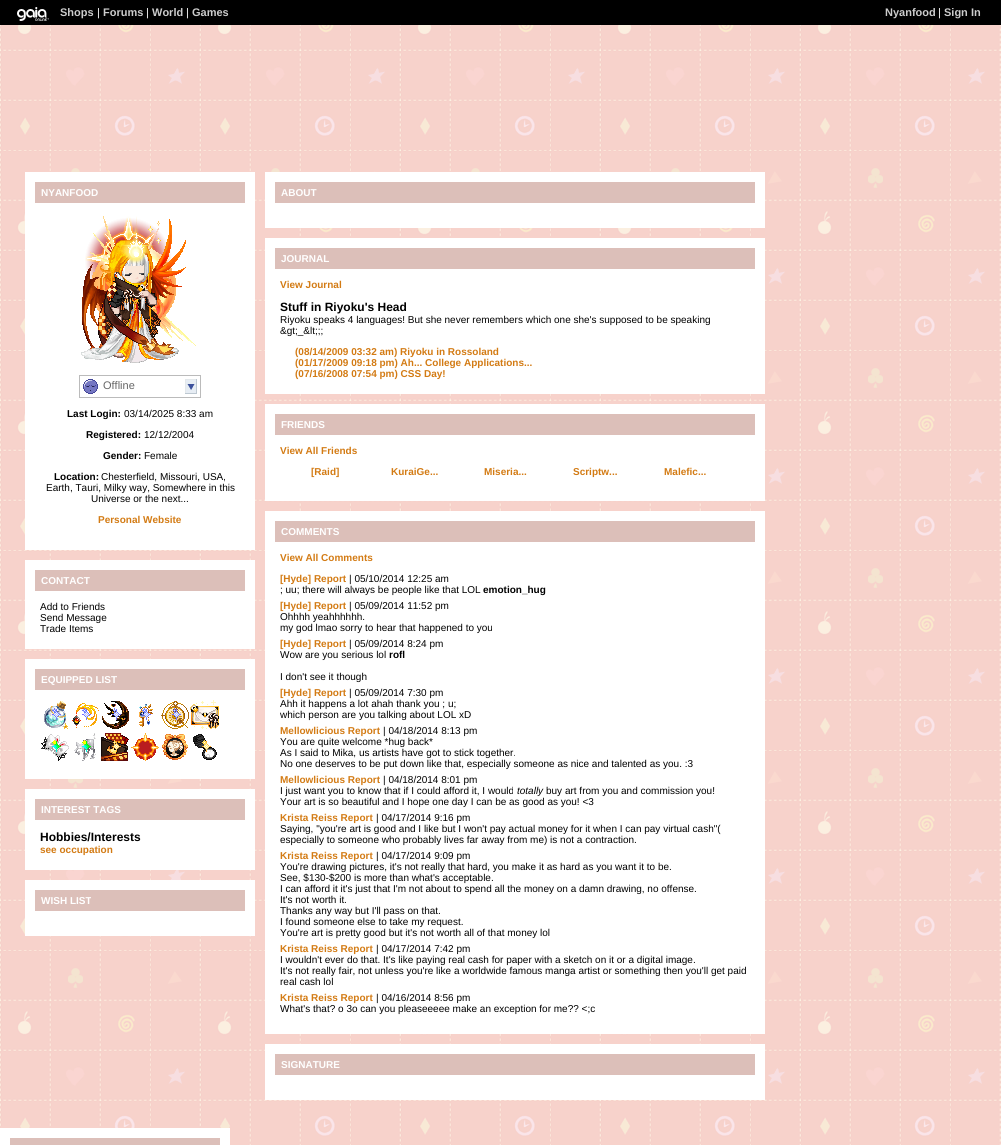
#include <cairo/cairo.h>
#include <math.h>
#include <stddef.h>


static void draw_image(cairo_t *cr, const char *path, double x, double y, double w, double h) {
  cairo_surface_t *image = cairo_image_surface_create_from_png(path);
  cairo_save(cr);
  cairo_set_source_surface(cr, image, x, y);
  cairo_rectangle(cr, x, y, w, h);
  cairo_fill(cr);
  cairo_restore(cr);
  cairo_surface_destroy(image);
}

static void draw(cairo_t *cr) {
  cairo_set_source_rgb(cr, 1, 1, 1);
  cairo_paint(cr);
  draw_image(cr, "images/1.png", 0, 25, 1001, 1120);
  cairo_set_source_rgb(cr, 0, 0, 0);
  cairo_rectangle(cr, 0, 0, 1001, 25);
  cairo_fill(cr);
  draw_image(cr, "images/2.png", 17, 7, 32, 14);
  cairo_set_source_rgb(cr, 1, 1, 1);
  cairo_rectangle(cr, 25, 172, 230, 378);
  cairo_fill(cr);
  cairo_set_source_rgb(cr, 220 / 255.0, 191 / 255.0, 185 / 255.0);
  cairo_rectangle(cr, 35, 182, 210, 21);
  cairo_fill(cr);
  draw_image(cr, "images/3.png", 81, 216, 115, 147);
  cairo_rectangle(cr, 79.5, 375.5, 121, 22);
  cairo_set_source_rgb(cr, 187 / 255.0, 187 / 255.0, 187 / 255.0);
  cairo_set_line_width(cr, 1);
  cairo_stroke(cr);
  draw_image(cr, "images/4.png", 185, 379, 12, 15);
  draw_image(cr, "images/5.png", 83, 379, 15, 15);
  cairo_set_source_rgb(cr, 1, 1, 1);
  cairo_rectangle(cr, 25, 560, 230, 89);
  cairo_fill(cr);
  cairo_set_source_rgb(cr, 220 / 255.0, 191 / 255.0, 185 / 255.0);
  cairo_rectangle(cr, 35, 570, 210, 21);
  cairo_fill(cr);
  cairo_set_source_rgb(cr, 1, 1, 1);
  cairo_rectangle(cr, 25, 659, 230, 120);
  cairo_fill(cr);
  cairo_set_source_rgb(cr, 220 / 255.0, 191 / 255.0, 185 / 255.0);
  cairo_rectangle(cr, 35, 669, 210, 21);
  cairo_fill(cr);
  draw_image(cr, "images/6.png", 44, 701, 24, 28);
  draw_image(cr, "images/7.png", 52, 708, 9, 12);
  draw_image(cr, "images/8.png", 72, 703, 27, 25);
  draw_image(cr, "images/9.png", 82, 708, 9, 12);
  draw_image(cr, "images/10.png", 102, 701, 27, 28);
  draw_image(cr, "images/11.png", 112, 708, 9, 12);
  draw_image(cr, "images/12.png", 139, 704, 14, 23);
  draw_image(cr, "images/13.png", 142, 708, 9, 12);
  draw_image(cr, "images/14.png", 161, 701, 28, 28);
  draw_image(cr, "images/15.png", 172, 708, 9, 12);
  draw_image(cr, "images/16.png", 190, 700, 29, 29);
  draw_image(cr, "images/17.png", 41, 734, 28, 27);
  draw_image(cr, "images/18.png", 52, 740, 9, 12);
  draw_image(cr, "images/19.png", 74, 733, 22, 28);
  draw_image(cr, "images/20.png", 82, 740, 9, 12);
  draw_image(cr, "images/21.png", 101, 733, 28, 28);
  draw_image(cr, "images/22.png", 112, 740, 9, 12);
  draw_image(cr, "images/23.png", 131, 733, 28, 28);
  draw_image(cr, "images/24.png", 162, 734, 26, 26);
  draw_image(cr, "images/25.png", 193, 734, 24, 26);
  draw_image(cr, "images/26.png", 202, 740, 9, 12);
  cairo_set_source_rgb(cr, 1, 1, 1);
  cairo_rectangle(cr, 25, 789, 230, 81);
  cairo_fill(cr);
  cairo_set_source_rgb(cr, 220 / 255.0, 191 / 255.0, 185 / 255.0);
  cairo_rectangle(cr, 35, 799, 210, 21);
  cairo_fill(cr);
  cairo_set_source_rgb(cr, 1, 1, 1);
  cairo_rectangle(cr, 25, 880, 230, 56);
  cairo_fill(cr);
  cairo_set_source_rgb(cr, 220 / 255.0, 191 / 255.0, 185 / 255.0);
  cairo_rectangle(cr, 35, 890, 210, 21);
  cairo_fill(cr);
  cairo_set_source_rgb(cr, 1, 1, 1);
  cairo_rectangle(cr, 265, 172, 500, 56);
  cairo_fill(cr);
  cairo_set_source_rgb(cr, 220 / 255.0, 191 / 255.0, 185 / 255.0);
  cairo_rectangle(cr, 275, 182, 480, 21);
  cairo_fill(cr);
  cairo_set_source_rgb(cr, 1, 1, 1);
  cairo_rectangle(cr, 265, 238, 500, 156);
  cairo_fill(cr);
  cairo_set_source_rgb(cr, 220 / 255.0, 191 / 255.0, 185 / 255.0);
  cairo_rectangle(cr, 275, 248, 480, 21);
  cairo_fill(cr);
  cairo_set_source_rgb(cr, 1, 1, 1);
  cairo_rectangle(cr, 265, 404, 500, 97);
  cairo_fill(cr);
  cairo_set_source_rgb(cr, 220 / 255.0, 191 / 255.0, 185 / 255.0);
  cairo_rectangle(cr, 275, 414, 480, 21);
  cairo_fill(cr);
  cairo_set_source_rgb(cr, 1, 1, 1);
  cairo_rectangle(cr, 265, 511, 500, 523);
  cairo_fill(cr);
  cairo_set_source_rgb(cr, 220 / 255.0, 191 / 255.0, 185 / 255.0);
  cairo_rectangle(cr, 275, 521, 480, 21);
  cairo_fill(cr);
  cairo_set_source_rgb(cr, 1, 1, 1);
  cairo_rectangle(cr, 265, 1044, 500, 56);
  cairo_fill(cr);
  cairo_set_source_rgb(cr, 220 / 255.0, 191 / 255.0, 185 / 255.0);
  cairo_rectangle(cr, 275, 1054, 480, 21);
  cairo_fill(cr);
  cairo_set_source_rgb(cr, 1, 1, 1);
  cairo_rectangle(cr, 0, 1128, 230, 17);
  cairo_fill(cr);
  cairo_set_source_rgb(cr, 220 / 255.0, 191 / 255.0, 185 / 255.0);
  cairo_rectangle(cr, 10, 1138, 210, 7);
  cairo_fill(cr);
  cairo_select_font_face(cr, "Liberation Sans", CAIRO_FONT_SLANT_NORMAL, CAIRO_FONT_WEIGHT_BOLD);
  cairo_set_font_size(cr, 11);
  cairo_set_source_rgb(cr, 204 / 255.0, 204 / 255.0, 204 / 255.0);
  cairo_move_to(cr, 60, 16);
  cairo_show_text(cr, "Shops");
  cairo_select_font_face(cr, "Liberation Sans", CAIRO_FONT_SLANT_NORMAL, CAIRO_FONT_WEIGHT_NORMAL);
  cairo_set_source_rgb(cr, 1, 1, 1);
  cairo_move_to(cr, 97, 16);
  cairo_show_text(cr, "|");
  cairo_select_font_face(cr, "Liberation Sans", CAIRO_FONT_SLANT_NORMAL, CAIRO_FONT_WEIGHT_BOLD);
  cairo_set_source_rgb(cr, 204 / 255.0, 204 / 255.0, 204 / 255.0);
  cairo_move_to(cr, 103, 16);
  cairo_show_text(cr, "Forums");
  cairo_select_font_face(cr, "Liberation Sans", CAIRO_FONT_SLANT_NORMAL, CAIRO_FONT_WEIGHT_NORMAL);
  cairo_set_source_rgb(cr, 1, 1, 1);
  cairo_move_to(cr, 146, 16);
  cairo_show_text(cr, "|");
  cairo_select_font_face(cr, "Liberation Sans", CAIRO_FONT_SLANT_NORMAL, CAIRO_FONT_WEIGHT_BOLD);
  cairo_set_source_rgb(cr, 204 / 255.0, 204 / 255.0, 204 / 255.0);
  cairo_move_to(cr, 152, 16);
  cairo_show_text(cr, "World");
  cairo_select_font_face(cr, "Liberation Sans", CAIRO_FONT_SLANT_NORMAL, CAIRO_FONT_WEIGHT_NORMAL);
  cairo_set_source_rgb(cr, 1, 1, 1);
  cairo_move_to(cr, 186, 16);
  cairo_show_text(cr, "|");
  cairo_select_font_face(cr, "Liberation Sans", CAIRO_FONT_SLANT_NORMAL, CAIRO_FONT_WEIGHT_BOLD);
  cairo_set_source_rgb(cr, 204 / 255.0, 204 / 255.0, 204 / 255.0);
  cairo_move_to(cr, 192, 16);
  cairo_show_text(cr, "Games");
  cairo_move_to(cr, 885, 16);
  cairo_show_text(cr, "Nyanfood");
  cairo_select_font_face(cr, "Liberation Sans", CAIRO_FONT_SLANT_NORMAL, CAIRO_FONT_WEIGHT_NORMAL);
  cairo_set_source_rgb(cr, 1, 1, 1);
  cairo_move_to(cr, 938, 16);
  cairo_show_text(cr, "|");
  cairo_select_font_face(cr, "Liberation Sans", CAIRO_FONT_SLANT_NORMAL, CAIRO_FONT_WEIGHT_BOLD);
  cairo_set_source_rgb(cr, 204 / 255.0, 204 / 255.0, 204 / 255.0);
  cairo_move_to(cr, 944, 16);
  cairo_show_text(cr, "Sign In");
  cairo_set_font_size(cr, 10);
  cairo_set_source_rgb(cr, 1, 1, 1);
  cairo_move_to(cr, 41, 196);
  cairo_show_text(cr, "NYANFOOD");
  cairo_select_font_face(cr, "Liberation Sans", CAIRO_FONT_SLANT_NORMAL, CAIRO_FONT_WEIGHT_NORMAL);
  cairo_set_font_size(cr, 11);
  cairo_set_source_rgb(cr, 102 / 255.0, 102 / 255.0, 102 / 255.0);
  cairo_move_to(cr, 103, 389);
  cairo_show_text(cr, "Offline");
  cairo_select_font_face(cr, "Liberation Sans", CAIRO_FONT_SLANT_NORMAL, CAIRO_FONT_WEIGHT_BOLD);
  cairo_set_font_size(cr, 10);
  cairo_set_source_rgb(cr, 0, 0, 0);
  cairo_move_to(cr, 67, 417);
  cairo_show_text(cr, "Last Login:");
  cairo_select_font_face(cr, "Liberation Sans", CAIRO_FONT_SLANT_NORMAL, CAIRO_FONT_WEIGHT_NORMAL);
  cairo_move_to(cr, 124, 417);
  cairo_show_text(cr, "03/14/2025 8:33 am");
  cairo_select_font_face(cr, "Liberation Sans", CAIRO_FONT_SLANT_NORMAL, CAIRO_FONT_WEIGHT_BOLD);
  cairo_move_to(cr, 86, 438);
  cairo_show_text(cr, "Registered:");
  cairo_select_font_face(cr, "Liberation Sans", CAIRO_FONT_SLANT_NORMAL, CAIRO_FONT_WEIGHT_NORMAL);
  cairo_move_to(cr, 144, 438);
  cairo_show_text(cr, "12/12/2004");
  cairo_select_font_face(cr, "Liberation Sans", CAIRO_FONT_SLANT_NORMAL, CAIRO_FONT_WEIGHT_BOLD);
  cairo_move_to(cr, 103, 459);
  cairo_show_text(cr, "Gender:");
  cairo_select_font_face(cr, "Liberation Sans", CAIRO_FONT_SLANT_NORMAL, CAIRO_FONT_WEIGHT_NORMAL);
  cairo_move_to(cr, 144, 459);
  cairo_show_text(cr, "Female");
  cairo_select_font_face(cr, "Liberation Sans", CAIRO_FONT_SLANT_NORMAL, CAIRO_FONT_WEIGHT_BOLD);
  cairo_move_to(cr, 54, 480);
  cairo_show_text(cr, "Location:");
  cairo_select_font_face(cr, "Liberation Sans", CAIRO_FONT_SLANT_NORMAL, CAIRO_FONT_WEIGHT_NORMAL);
  cairo_move_to(cr, 101, 480);
  cairo_show_text(cr, "Chesterfield, Missouri, USA,");
  cairo_move_to(cr, 46, 491);
  cairo_show_text(cr, "Earth, Tauri, Milky way, Somewhere in this");
  cairo_move_to(cr, 91, 502);
  cairo_show_text(cr, "Universe or the next...");
  cairo_select_font_face(cr, "Liberation Sans", CAIRO_FONT_SLANT_NORMAL, CAIRO_FONT_WEIGHT_BOLD);
  cairo_set_source_rgb(cr, 211 / 255.0, 123 / 255.0, 20 / 255.0);
  cairo_move_to(cr, 98, 523);
  cairo_show_text(cr, "Personal Website");
  cairo_set_source_rgb(cr, 1, 1, 1);
  cairo_move_to(cr, 41, 584);
  cairo_show_text(cr, "CONTACT");
  cairo_select_font_face(cr, "Liberation Sans", CAIRO_FONT_SLANT_NORMAL, CAIRO_FONT_WEIGHT_NORMAL);
  cairo_set_source_rgb(cr, 0, 0, 0);
  cairo_move_to(cr, 40, 610);
  cairo_show_text(cr, "Add to Friends");
  cairo_move_to(cr, 40, 621);
  cairo_show_text(cr, "Send Message");
  cairo_move_to(cr, 40, 632);
  cairo_show_text(cr, "Trade Items");
  cairo_select_font_face(cr, "Liberation Sans", CAIRO_FONT_SLANT_NORMAL, CAIRO_FONT_WEIGHT_BOLD);
  cairo_set_source_rgb(cr, 1, 1, 1);
  cairo_move_to(cr, 41, 683);
  cairo_show_text(cr, "EQUIPPED LIST");
  cairo_move_to(cr, 41, 813);
  cairo_show_text(cr, "INTEREST TAGS");
  cairo_set_font_size(cr, 12);
  cairo_set_source_rgb(cr, 0, 0, 0);
  cairo_move_to(cr, 40, 841);
  cairo_show_text(cr, "Hobbies/Interests");
  cairo_set_font_size(cr, 10);
  cairo_set_source_rgb(cr, 211 / 255.0, 123 / 255.0, 20 / 255.0);
  cairo_move_to(cr, 40, 853);
  cairo_show_text(cr, "see occupation");
  cairo_set_source_rgb(cr, 1, 1, 1);
  cairo_move_to(cr, 41, 904);
  cairo_show_text(cr, "WISH LIST");
  cairo_move_to(cr, 281, 196);
  cairo_show_text(cr, "ABOUT");
  cairo_move_to(cr, 281, 262);
  cairo_show_text(cr, "JOURNAL");
  cairo_set_source_rgb(cr, 211 / 255.0, 123 / 255.0, 20 / 255.0);
  cairo_move_to(cr, 280, 288);
  cairo_show_text(cr, "View Journal");
  cairo_set_font_size(cr, 12);
  cairo_set_source_rgb(cr, 0, 0, 0);
  cairo_move_to(cr, 280, 311);
  cairo_show_text(cr, "Stuff in Riyoku's Head");
  cairo_select_font_face(cr, "Liberation Sans", CAIRO_FONT_SLANT_NORMAL, CAIRO_FONT_WEIGHT_NORMAL);
  cairo_set_font_size(cr, 10);
  cairo_move_to(cr, 280, 323);
  cairo_show_text(cr, "Riyoku speaks 4 languages! But she never remembers which one she's supposed to be speaking");
  cairo_move_to(cr, 280, 334);
  cairo_show_text(cr, "&gt;_&lt;;;");
  cairo_select_font_face(cr, "Liberation Sans", CAIRO_FONT_SLANT_NORMAL, CAIRO_FONT_WEIGHT_BOLD);
  cairo_set_source_rgb(cr, 211 / 255.0, 123 / 255.0, 20 / 255.0);
  cairo_move_to(cr, 295, 355);
  cairo_show_text(cr, "(08/14/2009 03:32 am) Riyoku in Rossoland");
  cairo_move_to(cr, 295, 366);
  cairo_show_text(cr, "(01/17/2009 09:18 pm) Ah... College Applications...");
  cairo_move_to(cr, 295, 377);
  cairo_show_text(cr, "(07/16/2008 07:54 pm) CSS Day!");
  cairo_set_source_rgb(cr, 1, 1, 1);
  cairo_move_to(cr, 281, 428);
  cairo_show_text(cr, "FRIENDS");
  cairo_set_source_rgb(cr, 211 / 255.0, 123 / 255.0, 20 / 255.0);
  cairo_move_to(cr, 280, 454);
  cairo_show_text(cr, "View All Friends");
  cairo_move_to(cr, 311, 475);
  cairo_show_text(cr, "[Raid]");
  cairo_move_to(cr, 391, 475);
  cairo_show_text(cr, "KuraiGe...");
  cairo_move_to(cr, 484, 475);
  cairo_show_text(cr, "Miseria...");
  cairo_move_to(cr, 573, 475);
  cairo_show_text(cr, "Scriptw...");
  cairo_move_to(cr, 664, 475);
  cairo_show_text(cr, "Malefic...");
  cairo_set_source_rgb(cr, 1, 1, 1);
  cairo_move_to(cr, 281, 535);
  cairo_show_text(cr, "COMMENTS");
  cairo_set_source_rgb(cr, 211 / 255.0, 123 / 255.0, 20 / 255.0);
  cairo_move_to(cr, 280, 561);
  cairo_show_text(cr, "View All Comments");
  cairo_move_to(cr, 280, 582);
  cairo_show_text(cr, "[Hyde] Report");
  cairo_select_font_face(cr, "Liberation Sans", CAIRO_FONT_SLANT_NORMAL, CAIRO_FONT_WEIGHT_NORMAL);
  cairo_set_source_rgb(cr, 0, 0, 0);
  cairo_move_to(cr, 349, 582);
  cairo_show_text(cr, "| 05/10/2014 12:25 am");
  cairo_move_to(cr, 280, 593);
  cairo_show_text(cr, "; uu; there will always be people like that LOL");
  cairo_select_font_face(cr, "Liberation Sans", CAIRO_FONT_SLANT_NORMAL, CAIRO_FONT_WEIGHT_BOLD);
  cairo_move_to(cr, 483, 593);
  cairo_show_text(cr, "emotion_hug");
  cairo_set_source_rgb(cr, 211 / 255.0, 123 / 255.0, 20 / 255.0);
  cairo_move_to(cr, 280, 609);
  cairo_show_text(cr, "[Hyde] Report");
  cairo_select_font_face(cr, "Liberation Sans", CAIRO_FONT_SLANT_NORMAL, CAIRO_FONT_WEIGHT_NORMAL);
  cairo_set_source_rgb(cr, 0, 0, 0);
  cairo_move_to(cr, 349, 609);
  cairo_show_text(cr, "| 05/09/2014 11:52 pm");
  cairo_move_to(cr, 280, 620);
  cairo_show_text(cr, "Ohhhh yeahhhhhh.");
  cairo_move_to(cr, 280, 631);
  cairo_show_text(cr, "my god lmao sorry to hear that happened to you");
  cairo_select_font_face(cr, "Liberation Sans", CAIRO_FONT_SLANT_NORMAL, CAIRO_FONT_WEIGHT_BOLD);
  cairo_set_source_rgb(cr, 211 / 255.0, 123 / 255.0, 20 / 255.0);
  cairo_move_to(cr, 280, 647);
  cairo_show_text(cr, "[Hyde] Report");
  cairo_select_font_face(cr, "Liberation Sans", CAIRO_FONT_SLANT_NORMAL, CAIRO_FONT_WEIGHT_NORMAL);
  cairo_set_source_rgb(cr, 0, 0, 0);
  cairo_move_to(cr, 349, 647);
  cairo_show_text(cr, "| 05/09/2014 8:24 pm");
  cairo_move_to(cr, 280, 658);
  cairo_show_text(cr, "Wow are you serious lol");
  cairo_select_font_face(cr, "Liberation Sans", CAIRO_FONT_SLANT_NORMAL, CAIRO_FONT_WEIGHT_BOLD);
  cairo_move_to(cr, 389, 658);
  cairo_show_text(cr, "rofl");
  cairo_select_font_face(cr, "Liberation Sans", CAIRO_FONT_SLANT_NORMAL, CAIRO_FONT_WEIGHT_NORMAL);
  cairo_move_to(cr, 280, 680);
  cairo_show_text(cr, "I don't see it though");
  cairo_select_font_face(cr, "Liberation Sans", CAIRO_FONT_SLANT_NORMAL, CAIRO_FONT_WEIGHT_BOLD);
  cairo_set_source_rgb(cr, 211 / 255.0, 123 / 255.0, 20 / 255.0);
  cairo_move_to(cr, 280, 696);
  cairo_show_text(cr, "[Hyde] Report");
  cairo_select_font_face(cr, "Liberation Sans", CAIRO_FONT_SLANT_NORMAL, CAIRO_FONT_WEIGHT_NORMAL);
  cairo_set_source_rgb(cr, 0, 0, 0);
  cairo_move_to(cr, 349, 696);
  cairo_show_text(cr, "| 05/09/2014 7:30 pm");
  cairo_move_to(cr, 280, 707);
  cairo_show_text(cr, "Ahh it happens a lot ahah thank you ; u;");
  cairo_move_to(cr, 280, 718);
  cairo_show_text(cr, "which person are you talking about LOL xD");
  cairo_select_font_face(cr, "Liberation Sans", CAIRO_FONT_SLANT_NORMAL, CAIRO_FONT_WEIGHT_BOLD);
  cairo_set_source_rgb(cr, 211 / 255.0, 123 / 255.0, 20 / 255.0);
  cairo_move_to(cr, 280, 734);
  cairo_show_text(cr, "Mellowlicious Report");
  cairo_select_font_face(cr, "Liberation Sans", CAIRO_FONT_SLANT_NORMAL, CAIRO_FONT_WEIGHT_NORMAL);
  cairo_set_source_rgb(cr, 0, 0, 0);
  cairo_move_to(cr, 383, 734);
  cairo_show_text(cr, "| 04/18/2014 8:13 pm");
  cairo_move_to(cr, 280, 745);
  cairo_show_text(cr, "You are quite welcome *hug back*");
  cairo_move_to(cr, 280, 756);
  cairo_show_text(cr, "As I said to Mika, us artists have got to stick together.");
  cairo_move_to(cr, 280, 767);
  cairo_show_text(cr, "No one deserves to be put down like that, especially someone as nice and talented as you. :3");
  cairo_select_font_face(cr, "Liberation Sans", CAIRO_FONT_SLANT_NORMAL, CAIRO_FONT_WEIGHT_BOLD);
  cairo_set_source_rgb(cr, 211 / 255.0, 123 / 255.0, 20 / 255.0);
  cairo_move_to(cr, 280, 783);
  cairo_show_text(cr, "Mellowlicious Report");
  cairo_select_font_face(cr, "Liberation Sans", CAIRO_FONT_SLANT_NORMAL, CAIRO_FONT_WEIGHT_NORMAL);
  cairo_set_source_rgb(cr, 0, 0, 0);
  cairo_move_to(cr, 383, 783);
  cairo_show_text(cr, "| 04/18/2014 8:01 pm");
  cairo_move_to(cr, 280, 794);
  cairo_show_text(cr, "I just want you to know that if I could afford it, I would");
  cairo_select_font_face(cr, "Liberation Sans", CAIRO_FONT_SLANT_ITALIC, CAIRO_FONT_WEIGHT_NORMAL);
  cairo_move_to(cr, 517, 794);
  cairo_show_text(cr, "totally");
  cairo_select_font_face(cr, "Liberation Sans", CAIRO_FONT_SLANT_NORMAL, CAIRO_FONT_WEIGHT_NORMAL);
  cairo_move_to(cr, 546, 794);
  cairo_show_text(cr, "buy art from you and commission you!");
  cairo_move_to(cr, 280, 805);
  cairo_show_text(cr, "Your art is so beautiful and I hope one day I can be as good as you! <3");
  cairo_select_font_face(cr, "Liberation Sans", CAIRO_FONT_SLANT_NORMAL, CAIRO_FONT_WEIGHT_BOLD);
  cairo_set_source_rgb(cr, 211 / 255.0, 123 / 255.0, 20 / 255.0);
  cairo_move_to(cr, 280, 821);
  cairo_show_text(cr, "Krista Reiss Report");
  cairo_select_font_face(cr, "Liberation Sans", CAIRO_FONT_SLANT_NORMAL, CAIRO_FONT_WEIGHT_NORMAL);
  cairo_set_source_rgb(cr, 0, 0, 0);
  cairo_move_to(cr, 376, 821);
  cairo_show_text(cr, "| 04/17/2014 9:16 pm");
  cairo_move_to(cr, 280, 832);
  cairo_show_text(cr, "Saying, \"you're art is good and I like but I won't pay actual money for it when I can pay virtual cash\"(");
  cairo_move_to(cr, 280, 843);
  cairo_show_text(cr, "especially to someone who probably lives far away from me) is not a contraction.");
  cairo_select_font_face(cr, "Liberation Sans", CAIRO_FONT_SLANT_NORMAL, CAIRO_FONT_WEIGHT_BOLD);
  cairo_set_source_rgb(cr, 211 / 255.0, 123 / 255.0, 20 / 255.0);
  cairo_move_to(cr, 280, 859);
  cairo_show_text(cr, "Krista Reiss Report");
  cairo_select_font_face(cr, "Liberation Sans", CAIRO_FONT_SLANT_NORMAL, CAIRO_FONT_WEIGHT_NORMAL);
  cairo_set_source_rgb(cr, 0, 0, 0);
  cairo_move_to(cr, 376, 859);
  cairo_show_text(cr, "| 04/17/2014 9:09 pm");
  cairo_move_to(cr, 280, 870);
  cairo_show_text(cr, "You're drawing pictures, it's not really that hard, you make it as hard as you want it to be.");
  cairo_move_to(cr, 280, 881);
  cairo_show_text(cr, "See, $130-$200 is more than what's acceptable.");
  cairo_move_to(cr, 280, 892);
  cairo_show_text(cr, "I can afford it it's just that I'm not about to spend all the money on a damn drawing, no offense.");
  cairo_move_to(cr, 280, 903);
  cairo_show_text(cr, "It's not worth it.");
  cairo_move_to(cr, 280, 914);
  cairo_show_text(cr, "Thanks any way but I'll pass on that.");
  cairo_move_to(cr, 280, 925);
  cairo_show_text(cr, "I found someone else to take my request.");
  cairo_move_to(cr, 280, 936);
  cairo_show_text(cr, "You're art is pretty good but it's not worth all of that money lol");
  cairo_select_font_face(cr, "Liberation Sans", CAIRO_FONT_SLANT_NORMAL, CAIRO_FONT_WEIGHT_BOLD);
  cairo_set_source_rgb(cr, 211 / 255.0, 123 / 255.0, 20 / 255.0);
  cairo_move_to(cr, 280, 952);
  cairo_show_text(cr, "Krista Reiss Report");
  cairo_select_font_face(cr, "Liberation Sans", CAIRO_FONT_SLANT_NORMAL, CAIRO_FONT_WEIGHT_NORMAL);
  cairo_set_source_rgb(cr, 0, 0, 0);
  cairo_move_to(cr, 376, 952);
  cairo_show_text(cr, "| 04/17/2014 7:42 pm");
  cairo_move_to(cr, 280, 963);
  cairo_show_text(cr, "I wouldn't ever do that. It's like paying real cash for paper with a sketch on it or a digital image.");
  cairo_move_to(cr, 280, 974);
  cairo_show_text(cr, "It's not really fair, not unless you're like a worldwide famous manga artist or something then you'll get paid");
  cairo_move_to(cr, 280, 985);
  cairo_show_text(cr, "real cash lol");
  cairo_select_font_face(cr, "Liberation Sans", CAIRO_FONT_SLANT_NORMAL, CAIRO_FONT_WEIGHT_BOLD);
  cairo_set_source_rgb(cr, 211 / 255.0, 123 / 255.0, 20 / 255.0);
  cairo_move_to(cr, 280, 1001);
  cairo_show_text(cr, "Krista Reiss Report");
  cairo_select_font_face(cr, "Liberation Sans", CAIRO_FONT_SLANT_NORMAL, CAIRO_FONT_WEIGHT_NORMAL);
  cairo_set_source_rgb(cr, 0, 0, 0);
  cairo_move_to(cr, 376, 1001);
  cairo_show_text(cr, "| 04/16/2014 8:56 pm");
  cairo_move_to(cr, 280, 1012);
  cairo_show_text(cr, "What's that? o 3o can you pleaseeeee make an exception for me?\077 <;c");
  cairo_select_font_face(cr, "Liberation Sans", CAIRO_FONT_SLANT_NORMAL, CAIRO_FONT_WEIGHT_BOLD);
  cairo_set_source_rgb(cr, 1, 1, 1);
  cairo_move_to(cr, 281, 1068);
  cairo_show_text(cr, "SIGNATURE");
}

int main(void) {
  cairo_surface_t *surface = cairo_image_surface_create(CAIRO_FORMAT_RGB24, 1001, 1145);
  cairo_t *cr = cairo_create(surface);
  cairo_font_options_t *options = cairo_font_options_create();
  cairo_font_options_set_hint_metrics(options, CAIRO_HINT_METRICS_OFF);
  cairo_font_options_set_hint_style(options, CAIRO_HINT_STYLE_NONE);
  cairo_set_font_options(cr, options);
  cairo_set_miter_limit(cr, 4);
  draw(cr);
  cairo_surface_write_to_png(surface, "out.png");
  cairo_font_options_destroy(options);
  cairo_destroy(cr);
  cairo_surface_destroy(surface);
  return 0;
}
